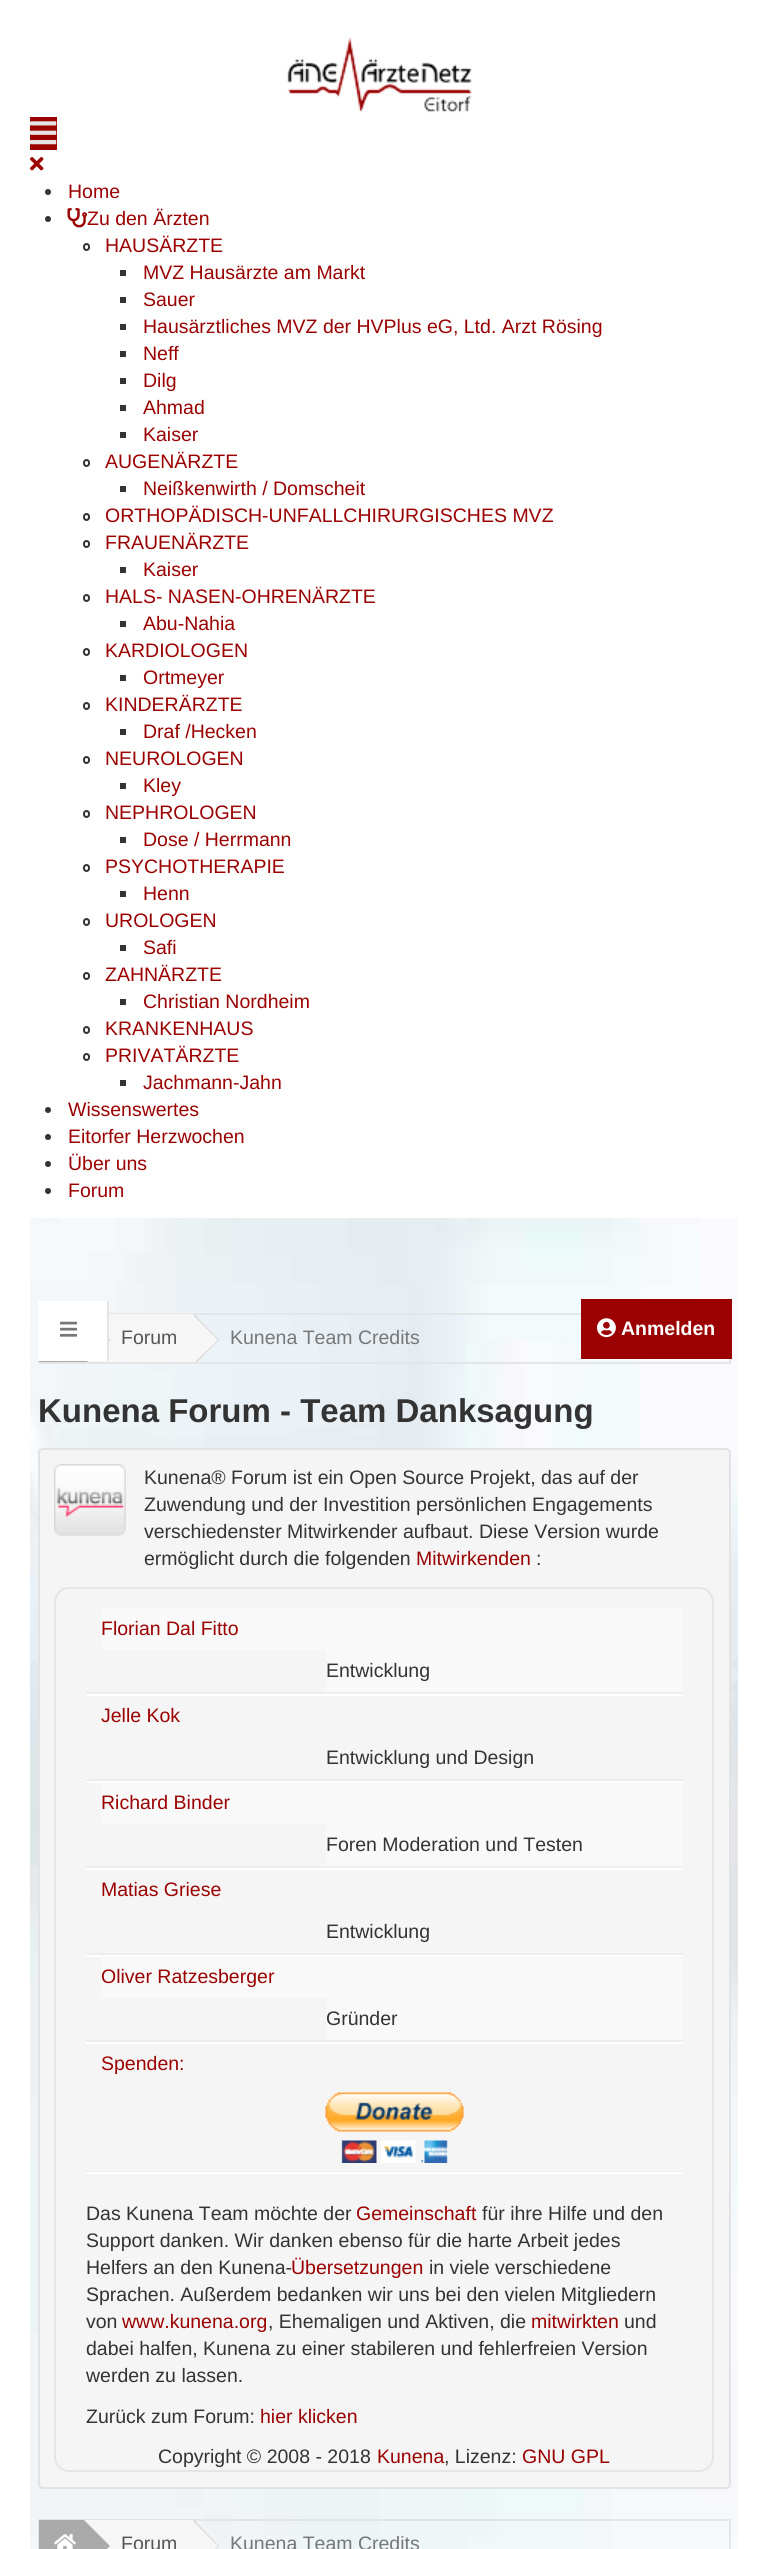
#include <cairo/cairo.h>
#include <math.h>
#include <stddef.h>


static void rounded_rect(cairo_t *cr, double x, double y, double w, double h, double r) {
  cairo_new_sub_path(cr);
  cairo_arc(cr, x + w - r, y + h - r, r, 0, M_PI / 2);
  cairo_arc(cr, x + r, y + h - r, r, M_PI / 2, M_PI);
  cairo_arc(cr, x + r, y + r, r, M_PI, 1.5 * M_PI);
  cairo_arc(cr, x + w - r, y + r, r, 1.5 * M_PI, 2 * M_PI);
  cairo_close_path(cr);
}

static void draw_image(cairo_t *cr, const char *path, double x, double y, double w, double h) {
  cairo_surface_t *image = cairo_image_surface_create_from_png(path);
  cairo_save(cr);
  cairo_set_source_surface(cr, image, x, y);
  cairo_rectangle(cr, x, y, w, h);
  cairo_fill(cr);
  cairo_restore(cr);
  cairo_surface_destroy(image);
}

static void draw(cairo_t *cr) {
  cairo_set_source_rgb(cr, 1, 1, 1);
  cairo_paint(cr);
  draw_image(cr, "images/1.png", 287, 37, 185, 76);
  cairo_set_source_rgb(cr, 155 / 255.0, 1 / 255.0, 1 / 255.0);
  cairo_rectangle(cr, 30, 117, 27, 33);
  cairo_fill(cr);
  draw_image(cr, "images/2.png", 30, 121, 27, 24);
  draw_image(cr, "images/3.png", 30, 157, 14, 14);
  cairo_set_source_rgb(cr, 51 / 255.0, 51 / 255.0, 51 / 255.0);
  cairo_arc(cr, 48, 192, 3, 0, 2 * M_PI);
  cairo_fill(cr);
  cairo_arc(cr, 48, 219, 3, 0, 2 * M_PI);
  cairo_fill(cr);
  draw_image(cr, "images/4.png", 67, 208, 20, 20);
  rounded_rect(cr, 84, 244, 5, 6, 2.5);
  cairo_stroke(cr);
  cairo_rectangle(cr, 120, 270, 6, 6);
  cairo_fill(cr);
  cairo_rectangle(cr, 120, 297, 6, 6);
  cairo_fill(cr);
  cairo_rectangle(cr, 120, 324, 6, 6);
  cairo_fill(cr);
  cairo_rectangle(cr, 120, 351, 6, 6);
  cairo_fill(cr);
  cairo_rectangle(cr, 120, 378, 6, 6);
  cairo_fill(cr);
  cairo_rectangle(cr, 120, 405, 6, 6);
  cairo_fill(cr);
  cairo_rectangle(cr, 120, 432, 6, 6);
  cairo_fill(cr);
  rounded_rect(cr, 84, 460, 5, 6, 2.5);
  cairo_stroke(cr);
  cairo_rectangle(cr, 120, 486, 6, 6);
  cairo_fill(cr);
  rounded_rect(cr, 84, 514, 5, 6, 2.5);
  cairo_stroke(cr);
  rounded_rect(cr, 84, 541, 5, 6, 2.5);
  cairo_stroke(cr);
  cairo_rectangle(cr, 120, 567, 6, 6);
  cairo_fill(cr);
  rounded_rect(cr, 84, 595, 5, 6, 2.5);
  cairo_stroke(cr);
  cairo_rectangle(cr, 120, 621, 6, 6);
  cairo_fill(cr);
  rounded_rect(cr, 84, 649, 5, 6, 2.5);
  cairo_stroke(cr);
  cairo_rectangle(cr, 120, 675, 6, 6);
  cairo_fill(cr);
  rounded_rect(cr, 84, 703, 5, 6, 2.5);
  cairo_stroke(cr);
  cairo_rectangle(cr, 120, 729, 6, 6);
  cairo_fill(cr);
  rounded_rect(cr, 84, 757, 5, 6, 2.5);
  cairo_stroke(cr);
  cairo_rectangle(cr, 120, 783, 6, 6);
  cairo_fill(cr);
  rounded_rect(cr, 84, 811, 5, 6, 2.5);
  cairo_stroke(cr);
  cairo_rectangle(cr, 120, 837, 6, 6);
  cairo_fill(cr);
  rounded_rect(cr, 84, 865, 5, 6, 2.5);
  cairo_stroke(cr);
  cairo_rectangle(cr, 120, 891, 6, 6);
  cairo_fill(cr);
  rounded_rect(cr, 84, 919, 5, 6, 2.5);
  cairo_stroke(cr);
  cairo_rectangle(cr, 120, 945, 6, 6);
  cairo_fill(cr);
  rounded_rect(cr, 84, 973, 5, 6, 2.5);
  cairo_stroke(cr);
  cairo_rectangle(cr, 120, 999, 6, 6);
  cairo_fill(cr);
  rounded_rect(cr, 84, 1027, 5, 6, 2.5);
  cairo_stroke(cr);
  rounded_rect(cr, 84, 1054, 5, 6, 2.5);
  cairo_stroke(cr);
  cairo_rectangle(cr, 120, 1080, 6, 6);
  cairo_fill(cr);
  cairo_arc(cr, 48, 1110, 3, 0, 2 * M_PI);
  cairo_fill(cr);
  cairo_arc(cr, 48, 1137, 3, 0, 2 * M_PI);
  cairo_fill(cr);
  cairo_arc(cr, 48, 1164, 3, 0, 2 * M_PI);
  cairo_fill(cr);
  cairo_arc(cr, 48, 1191, 3, 0, 2 * M_PI);
  cairo_fill(cr);
  draw_image(cr, "images/5.png", 30, 1218, 708, 1331);
  cairo_rectangle(cr, 39, 1314, 691, 49);
  cairo_set_source_rgb(cr, 229 / 255.0, 229 / 255.0, 229 / 255.0);
  cairo_stroke(cr);
  cairo_set_source_rgb(cr, 246 / 255.0, 246 / 255.0, 246 / 255.0);
  cairo_rectangle(cr, 87, 1314, 105, 48);
  cairo_fill(cr);
  cairo_set_source_rgb(cr, 170 / 255.0, 170 / 255.0, 170 / 255.0);
  cairo_rectangle(cr, 39, 1361, 45, 1);
  cairo_fill(cr);
  cairo_save(cr);
  cairo_rectangle(cr, 39, 1314, 690, 48);
  cairo_clip(cr);
  cairo_new_path(cr);
  cairo_move_to(cr, 84, 1365);
  cairo_line_to(cr, 84, 1314);
  cairo_line_to(cr, 110, 1340);
  cairo_close_path(cr);
  cairo_fill(cr);
  cairo_set_source_rgb(cr, 213 / 255.0, 213 / 255.0, 213 / 255.0);
  cairo_new_path(cr);
  cairo_move_to(cr, 194, 1365);
  cairo_line_to(cr, 194, 1314);
  cairo_line_to(cr, 219, 1340);
  cairo_close_path(cr);
  cairo_fill(cr);
  cairo_set_source_rgb(cr, 246 / 255.0, 246 / 255.0, 246 / 255.0);
  cairo_new_path(cr);
  cairo_move_to(cr, 192, 1365);
  cairo_line_to(cr, 192, 1314);
  cairo_line_to(cr, 218, 1340);
  cairo_close_path(cr);
  cairo_fill(cr);
  cairo_restore(cr);
  cairo_set_source_rgb(cr, 1, 1, 1);
  cairo_rectangle(cr, 38, 1301, 69, 60);
  cairo_fill(cr);
  cairo_set_source_rgb(cr, 229 / 255.0, 229 / 255.0, 229 / 255.0);
  cairo_rectangle(cr, 107, 1301, 2, 60);
  cairo_fill(cr);
  draw_image(cr, "images/6.png", 60, 1321, 18, 16);
  cairo_set_source_rgb(cr, 155 / 255.0, 1 / 255.0, 1 / 255.0);
  cairo_rectangle(cr, 581, 1299, 151, 60);
  cairo_fill(cr);
  draw_image(cr, "images/7.png", 597, 1318, 19, 20);
  cairo_set_source_rgb(cr, 245 / 255.0, 245 / 255.0, 245 / 255.0);
  rounded_rect(cr, 39, 1449, 691, 1039, 4);
  cairo_fill_preserve(cr);
  cairo_set_source_rgb(cr, 227 / 255.0, 227 / 255.0, 227 / 255.0);
  cairo_stroke(cr);
  draw_image(cr, "images/8.png", 54, 1464, 72, 72);
  rounded_rect(cr, 55, 1588, 658, 883, 14);
  cairo_set_source_rgb(cr, 229 / 255.0, 229 / 255.0, 229 / 255.0);
  cairo_stroke(cr);
  cairo_set_source_rgb(cr, 249 / 255.0, 249 / 255.0, 249 / 255.0);
  cairo_rectangle(cr, 101, 1608, 582, 42);
  cairo_fill(cr);
  cairo_rectangle(cr, 326, 1650, 357, 42);
  cairo_fill(cr);
  cairo_set_source_rgb(cr, 238 / 255.0, 238 / 255.0, 238 / 255.0);
  cairo_rectangle(cr, 86, 1692, 597, 2);
  cairo_fill(cr);
  cairo_set_source_rgb(cr, 1, 1, 1);
  cairo_rectangle(cr, 86, 1694, 597, 2);
  cairo_fill(cr);
  cairo_set_source_rgb(cr, 238 / 255.0, 238 / 255.0, 238 / 255.0);
  cairo_rectangle(cr, 86, 1779, 597, 2);
  cairo_fill(cr);
  cairo_set_source_rgb(cr, 1, 1, 1);
  cairo_rectangle(cr, 86, 1781, 597, 2);
  cairo_fill(cr);
  cairo_set_source_rgb(cr, 249 / 255.0, 249 / 255.0, 249 / 255.0);
  cairo_rectangle(cr, 101, 1782, 582, 42);
  cairo_fill(cr);
  cairo_rectangle(cr, 326, 1824, 357, 42);
  cairo_fill(cr);
  cairo_set_source_rgb(cr, 238 / 255.0, 238 / 255.0, 238 / 255.0);
  cairo_rectangle(cr, 86, 1866, 597, 2);
  cairo_fill(cr);
  cairo_set_source_rgb(cr, 1, 1, 1);
  cairo_rectangle(cr, 86, 1868, 597, 2);
  cairo_fill(cr);
  cairo_set_source_rgb(cr, 238 / 255.0, 238 / 255.0, 238 / 255.0);
  cairo_rectangle(cr, 86, 1953, 597, 2);
  cairo_fill(cr);
  cairo_set_source_rgb(cr, 1, 1, 1);
  cairo_rectangle(cr, 86, 1955, 597, 2);
  cairo_fill(cr);
  cairo_set_source_rgb(cr, 249 / 255.0, 249 / 255.0, 249 / 255.0);
  cairo_rectangle(cr, 101, 1956, 582, 42);
  cairo_fill(cr);
  cairo_rectangle(cr, 326, 1998, 357, 42);
  cairo_fill(cr);
  cairo_set_source_rgb(cr, 238 / 255.0, 238 / 255.0, 238 / 255.0);
  cairo_rectangle(cr, 86, 2040, 597, 2);
  cairo_fill(cr);
  cairo_set_source_rgb(cr, 1, 1, 1);
  cairo_rectangle(cr, 86, 2042, 597, 2);
  cairo_fill(cr);
  draw_image(cr, "images/9.png", 325, 2092, 139, 71);
  cairo_set_source_rgb(cr, 238 / 255.0, 238 / 255.0, 238 / 255.0);
  cairo_rectangle(cr, 86, 2171, 597, 1);
  cairo_fill(cr);
  cairo_set_source_rgb(cr, 1, 1, 1);
  cairo_rectangle(cr, 86, 2172, 597, 2);
  cairo_fill(cr);
  cairo_rectangle(cr, 39, 2520, 691, 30);
  cairo_set_source_rgb(cr, 229 / 255.0, 229 / 255.0, 229 / 255.0);
  cairo_stroke(cr);
  cairo_set_source_rgb(cr, 246 / 255.0, 246 / 255.0, 246 / 255.0);
  cairo_rectangle(cr, 84, 2520, 108, 29);
  cairo_fill(cr);
  cairo_set_source_rgb(cr, 170 / 255.0, 170 / 255.0, 170 / 255.0);
  cairo_rectangle(cr, 39, 2520, 45, 29);
  cairo_fill(cr);
  draw_image(cr, "images/10.png", 54, 2534, 22, 15);
  cairo_new_path(cr);
  cairo_move_to(cr, 84, 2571);
  cairo_line_to(cr, 84, 2520);
  cairo_line_to(cr, 110, 2546);
  cairo_close_path(cr);
  cairo_fill(cr);
  cairo_set_source_rgb(cr, 213 / 255.0, 213 / 255.0, 213 / 255.0);
  cairo_new_path(cr);
  cairo_move_to(cr, 194, 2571);
  cairo_line_to(cr, 194, 2520);
  cairo_line_to(cr, 219, 2546);
  cairo_close_path(cr);
  cairo_fill(cr);
  cairo_set_source_rgb(cr, 246 / 255.0, 246 / 255.0, 246 / 255.0);
  cairo_new_path(cr);
  cairo_move_to(cr, 192, 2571);
  cairo_line_to(cr, 192, 2520);
  cairo_line_to(cr, 218, 2546);
  cairo_close_path(cr);
  cairo_fill(cr);
  cairo_select_font_face(cr, "Liberation Sans", CAIRO_FONT_SLANT_NORMAL, CAIRO_FONT_WEIGHT_NORMAL);
  cairo_set_font_size(cr, 19.5);
  cairo_set_source_rgb(cr, 155 / 255.0, 1 / 255.0, 1 / 255.0);
  cairo_move_to(cr, 68, 198);
  cairo_show_text(cr, "Home");
  cairo_move_to(cr, 87, 225);
  cairo_show_text(cr, "Zu den Ärzten");
  cairo_move_to(cr, 105, 252);
  cairo_show_text(cr, "HAUSÄRZTE");
  cairo_move_to(cr, 143, 279);
  cairo_show_text(cr, "MVZ Hausärzte am Markt");
  cairo_move_to(cr, 143, 306);
  cairo_show_text(cr, "Sauer");
  cairo_move_to(cr, 143, 333);
  cairo_show_text(cr, "Hausärztliches MVZ der HVPlus eG, Ltd. Arzt Rösing");
  cairo_move_to(cr, 143, 360);
  cairo_show_text(cr, "Neff");
  cairo_move_to(cr, 143, 387);
  cairo_show_text(cr, "Dilg");
  cairo_move_to(cr, 143, 414);
  cairo_show_text(cr, "Ahmad");
  cairo_move_to(cr, 143, 441);
  cairo_show_text(cr, "Kaiser");
  cairo_move_to(cr, 105, 468);
  cairo_show_text(cr, "AUGENÄRZTE");
  cairo_move_to(cr, 143, 495);
  cairo_show_text(cr, "Neißkenwirth / Domscheit");
  cairo_move_to(cr, 105, 522);
  cairo_show_text(cr, "ORTHOPÄDISCH-UNFALLCHIRURGISCHES MVZ");
  cairo_move_to(cr, 105, 549);
  cairo_show_text(cr, "FRAUENÄRZTE");
  cairo_move_to(cr, 143, 576);
  cairo_show_text(cr, "Kaiser");
  cairo_move_to(cr, 105, 603);
  cairo_show_text(cr, "HALS- NASEN-OHRENÄRZTE");
  cairo_move_to(cr, 143, 630);
  cairo_show_text(cr, "Abu-Nahia");
  cairo_move_to(cr, 105, 657);
  cairo_show_text(cr, "KARDIOLOGEN");
  cairo_move_to(cr, 143, 684);
  cairo_show_text(cr, "Ortmeyer");
  cairo_move_to(cr, 105, 711);
  cairo_show_text(cr, "KINDERÄRZTE");
  cairo_move_to(cr, 143, 738);
  cairo_show_text(cr, "Draf /Hecken");
  cairo_move_to(cr, 105, 765);
  cairo_show_text(cr, "NEUROLOGEN");
  cairo_move_to(cr, 143, 792);
  cairo_show_text(cr, "Kley");
  cairo_move_to(cr, 105, 819);
  cairo_show_text(cr, "NEPHROLOGEN");
  cairo_move_to(cr, 143, 846);
  cairo_show_text(cr, "Dose / Herrmann");
  cairo_move_to(cr, 105, 873);
  cairo_show_text(cr, "PSYCHOTHERAPIE");
  cairo_move_to(cr, 143, 900);
  cairo_show_text(cr, "Henn");
  cairo_move_to(cr, 105, 927);
  cairo_show_text(cr, "UROLOGEN");
  cairo_move_to(cr, 143, 954);
  cairo_show_text(cr, "Safi");
  cairo_move_to(cr, 105, 981);
  cairo_show_text(cr, "ZAHNÄRZTE");
  cairo_move_to(cr, 143, 1008);
  cairo_show_text(cr, "Christian Nordheim");
  cairo_move_to(cr, 105, 1035);
  cairo_show_text(cr, "KRANKENHAUS");
  cairo_move_to(cr, 105, 1062);
  cairo_show_text(cr, "PRIVATÄRZTE");
  cairo_move_to(cr, 143, 1089);
  cairo_show_text(cr, "Jachmann-Jahn");
  cairo_move_to(cr, 68, 1116);
  cairo_show_text(cr, "Wissenswertes");
  cairo_move_to(cr, 68, 1143);
  cairo_show_text(cr, "Eitorfer Herzwochen");
  cairo_move_to(cr, 68, 1170);
  cairo_show_text(cr, "Über uns");
  cairo_move_to(cr, 68, 1197);
  cairo_show_text(cr, "Forum");
  cairo_set_source_rgb(cr, 85 / 255.0, 85 / 255.0, 85 / 255.0);
  cairo_move_to(cr, 121, 1344);
  cairo_show_text(cr, "Forum");
  cairo_set_source_rgb(cr, 119 / 255.0, 119 / 255.0, 119 / 255.0);
  cairo_move_to(cr, 230, 1344);
  cairo_show_text(cr, "Kunena Team Credits");
  cairo_select_font_face(cr, "Liberation Sans", CAIRO_FONT_SLANT_NORMAL, CAIRO_FONT_WEIGHT_BOLD);
  cairo_set_source_rgb(cr, 1, 1, 1);
  cairo_move_to(cr, 621, 1335);
  cairo_show_text(cr, "Anmelden");
  cairo_set_font_size(cr, 33);
  cairo_set_source_rgb(cr, 51 / 255.0, 51 / 255.0, 51 / 255.0);
  cairo_move_to(cr, 38, 1422);
  cairo_show_text(cr, "Kunena Forum - Team Danksagung");
  cairo_select_font_face(cr, "Liberation Sans", CAIRO_FONT_SLANT_NORMAL, CAIRO_FONT_WEIGHT_NORMAL);
  cairo_set_font_size(cr, 19.5);
  cairo_move_to(cr, 144, 1484);
  cairo_show_text(cr, "Kunena® Forum ist ein Open Source Projekt, das auf der");
  cairo_move_to(cr, 144, 1511);
  cairo_show_text(cr, "Zuwendung und der Investition persönlichen Engagements");
  cairo_move_to(cr, 144, 1538);
  cairo_show_text(cr, "verschiedenster Mitwirkender aufbaut. Diese Version wurde");
  cairo_move_to(cr, 144, 1565);
  cairo_show_text(cr, "ermöglicht durch die folgenden");
  cairo_set_source_rgb(cr, 155 / 255.0, 1 / 255.0, 1 / 255.0);
  cairo_move_to(cr, 416, 1565);
  cairo_show_text(cr, "Mitwirkenden");
  cairo_set_source_rgb(cr, 51 / 255.0, 51 / 255.0, 51 / 255.0);
  cairo_move_to(cr, 536, 1565);
  cairo_show_text(cr, ":");
  cairo_set_source_rgb(cr, 155 / 255.0, 1 / 255.0, 1 / 255.0);
  cairo_move_to(cr, 101, 1635);
  cairo_show_text(cr, "Florian Dal Fitto");
  cairo_set_source_rgb(cr, 51 / 255.0, 51 / 255.0, 51 / 255.0);
  cairo_move_to(cr, 326, 1677);
  cairo_show_text(cr, "Entwicklung");
  cairo_set_source_rgb(cr, 155 / 255.0, 1 / 255.0, 1 / 255.0);
  cairo_move_to(cr, 101, 1722);
  cairo_show_text(cr, "Jelle Kok");
  cairo_set_source_rgb(cr, 51 / 255.0, 51 / 255.0, 51 / 255.0);
  cairo_move_to(cr, 326, 1764);
  cairo_show_text(cr, "Entwicklung und Design");
  cairo_set_source_rgb(cr, 155 / 255.0, 1 / 255.0, 1 / 255.0);
  cairo_move_to(cr, 101, 1809);
  cairo_show_text(cr, "Richard Binder");
  cairo_set_source_rgb(cr, 51 / 255.0, 51 / 255.0, 51 / 255.0);
  cairo_move_to(cr, 326, 1851);
  cairo_show_text(cr, "Foren Moderation und Testen");
  cairo_set_source_rgb(cr, 155 / 255.0, 1 / 255.0, 1 / 255.0);
  cairo_move_to(cr, 101, 1896);
  cairo_show_text(cr, "Matias Griese");
  cairo_set_source_rgb(cr, 51 / 255.0, 51 / 255.0, 51 / 255.0);
  cairo_move_to(cr, 326, 1938);
  cairo_show_text(cr, "Entwicklung");
  cairo_set_source_rgb(cr, 155 / 255.0, 1 / 255.0, 1 / 255.0);
  cairo_move_to(cr, 101, 1983);
  cairo_show_text(cr, "Oliver Ratzesberger");
  cairo_set_source_rgb(cr, 51 / 255.0, 51 / 255.0, 51 / 255.0);
  cairo_move_to(cr, 326, 2025);
  cairo_show_text(cr, "Gründer");
  cairo_set_source_rgb(cr, 155 / 255.0, 1 / 255.0, 1 / 255.0);
  cairo_move_to(cr, 101, 2070);
  cairo_show_text(cr, "Spenden:");
  cairo_set_source_rgb(cr, 51 / 255.0, 51 / 255.0, 51 / 255.0);
  cairo_move_to(cr, 86, 2220);
  cairo_show_text(cr, "Das Kunena Team möchte der");
  cairo_set_source_rgb(cr, 155 / 255.0, 1 / 255.0, 1 / 255.0);
  cairo_move_to(cr, 356, 2220);
  cairo_show_text(cr, "Gemeinschaft");
  cairo_set_source_rgb(cr, 51 / 255.0, 51 / 255.0, 51 / 255.0);
  cairo_move_to(cr, 482, 2220);
  cairo_show_text(cr, "für ihre Hilfe und den");
  cairo_move_to(cr, 86, 2247);
  cairo_show_text(cr, "Support danken. Wir danken ebenso für die harte Arbeit jedes");
  cairo_move_to(cr, 86, 2274);
  cairo_show_text(cr, "Helfers an den Kunena-");
  cairo_set_source_rgb(cr, 155 / 255.0, 1 / 255.0, 1 / 255.0);
  cairo_move_to(cr, 291, 2274);
  cairo_show_text(cr, "Übersetzungen");
  cairo_set_source_rgb(cr, 51 / 255.0, 51 / 255.0, 51 / 255.0);
  cairo_move_to(cr, 429, 2274);
  cairo_show_text(cr, "in viele verschiedene");
  cairo_move_to(cr, 86, 2301);
  cairo_show_text(cr, "Sprachen. Außerdem bedanken wir uns bei den vielen Mitgliedern");
  cairo_move_to(cr, 86, 2328);
  cairo_show_text(cr, "von");
  cairo_set_source_rgb(cr, 155 / 255.0, 1 / 255.0, 1 / 255.0);
  cairo_move_to(cr, 122, 2328);
  cairo_show_text(cr, "www.kunena.org");
  cairo_set_source_rgb(cr, 51 / 255.0, 51 / 255.0, 51 / 255.0);
  cairo_move_to(cr, 268, 2328);
  cairo_show_text(cr, ", Ehemaligen und Aktiven, die");
  cairo_set_source_rgb(cr, 155 / 255.0, 1 / 255.0, 1 / 255.0);
  cairo_move_to(cr, 531, 2328);
  cairo_show_text(cr, "mitwirkten");
  cairo_set_source_rgb(cr, 51 / 255.0, 51 / 255.0, 51 / 255.0);
  cairo_move_to(cr, 624, 2328);
  cairo_show_text(cr, "und");
  cairo_move_to(cr, 86, 2355);
  cairo_show_text(cr, "dabei halfen, Kunena zu einer stabileren und fehlerfreien Version");
  cairo_move_to(cr, 86, 2382);
  cairo_show_text(cr, "werden zu lassen.");
  cairo_move_to(cr, 86, 2423);
  cairo_show_text(cr, "Zurück zum Forum:");
  cairo_set_source_rgb(cr, 155 / 255.0, 1 / 255.0, 1 / 255.0);
  cairo_move_to(cr, 260, 2423);
  cairo_show_text(cr, "hier klicken");
  cairo_set_source_rgb(cr, 51 / 255.0, 51 / 255.0, 51 / 255.0);
  cairo_move_to(cr, 158, 2463);
  cairo_show_text(cr, "Copyright © 2008 - 2018");
  cairo_set_source_rgb(cr, 155 / 255.0, 1 / 255.0, 1 / 255.0);
  cairo_move_to(cr, 377, 2463);
  cairo_show_text(cr, "Kunena");
  cairo_set_source_rgb(cr, 51 / 255.0, 51 / 255.0, 51 / 255.0);
  cairo_move_to(cr, 444, 2463);
  cairo_show_text(cr, ", Lizenz:");
  cairo_set_source_rgb(cr, 155 / 255.0, 1 / 255.0, 1 / 255.0);
  cairo_move_to(cr, 522, 2463);
  cairo_show_text(cr, "GNU GPL");
  cairo_set_source_rgb(cr, 85 / 255.0, 85 / 255.0, 85 / 255.0);
  cairo_move_to(cr, 121, 2550);
  cairo_show_text(cr, "Forum");
  cairo_set_source_rgb(cr, 119 / 255.0, 119 / 255.0, 119 / 255.0);
  cairo_move_to(cr, 230, 2550);
  cairo_show_text(cr, "Kunena Team Credits");
}

int main(void) {
  cairo_surface_t *surface = cairo_image_surface_create(CAIRO_FORMAT_RGB24, 767, 2549);
  cairo_t *cr = cairo_create(surface);
  cairo_font_options_t *options = cairo_font_options_create();
  cairo_font_options_set_hint_metrics(options, CAIRO_HINT_METRICS_OFF);
  cairo_font_options_set_hint_style(options, CAIRO_HINT_STYLE_NONE);
  cairo_set_font_options(cr, options);
  cairo_set_miter_limit(cr, 4);
  draw(cr);
  cairo_surface_write_to_png(surface, "out.png");
  cairo_font_options_destroy(options);
  cairo_destroy(cr);
  cairo_surface_destroy(surface);
  return 0;
}
